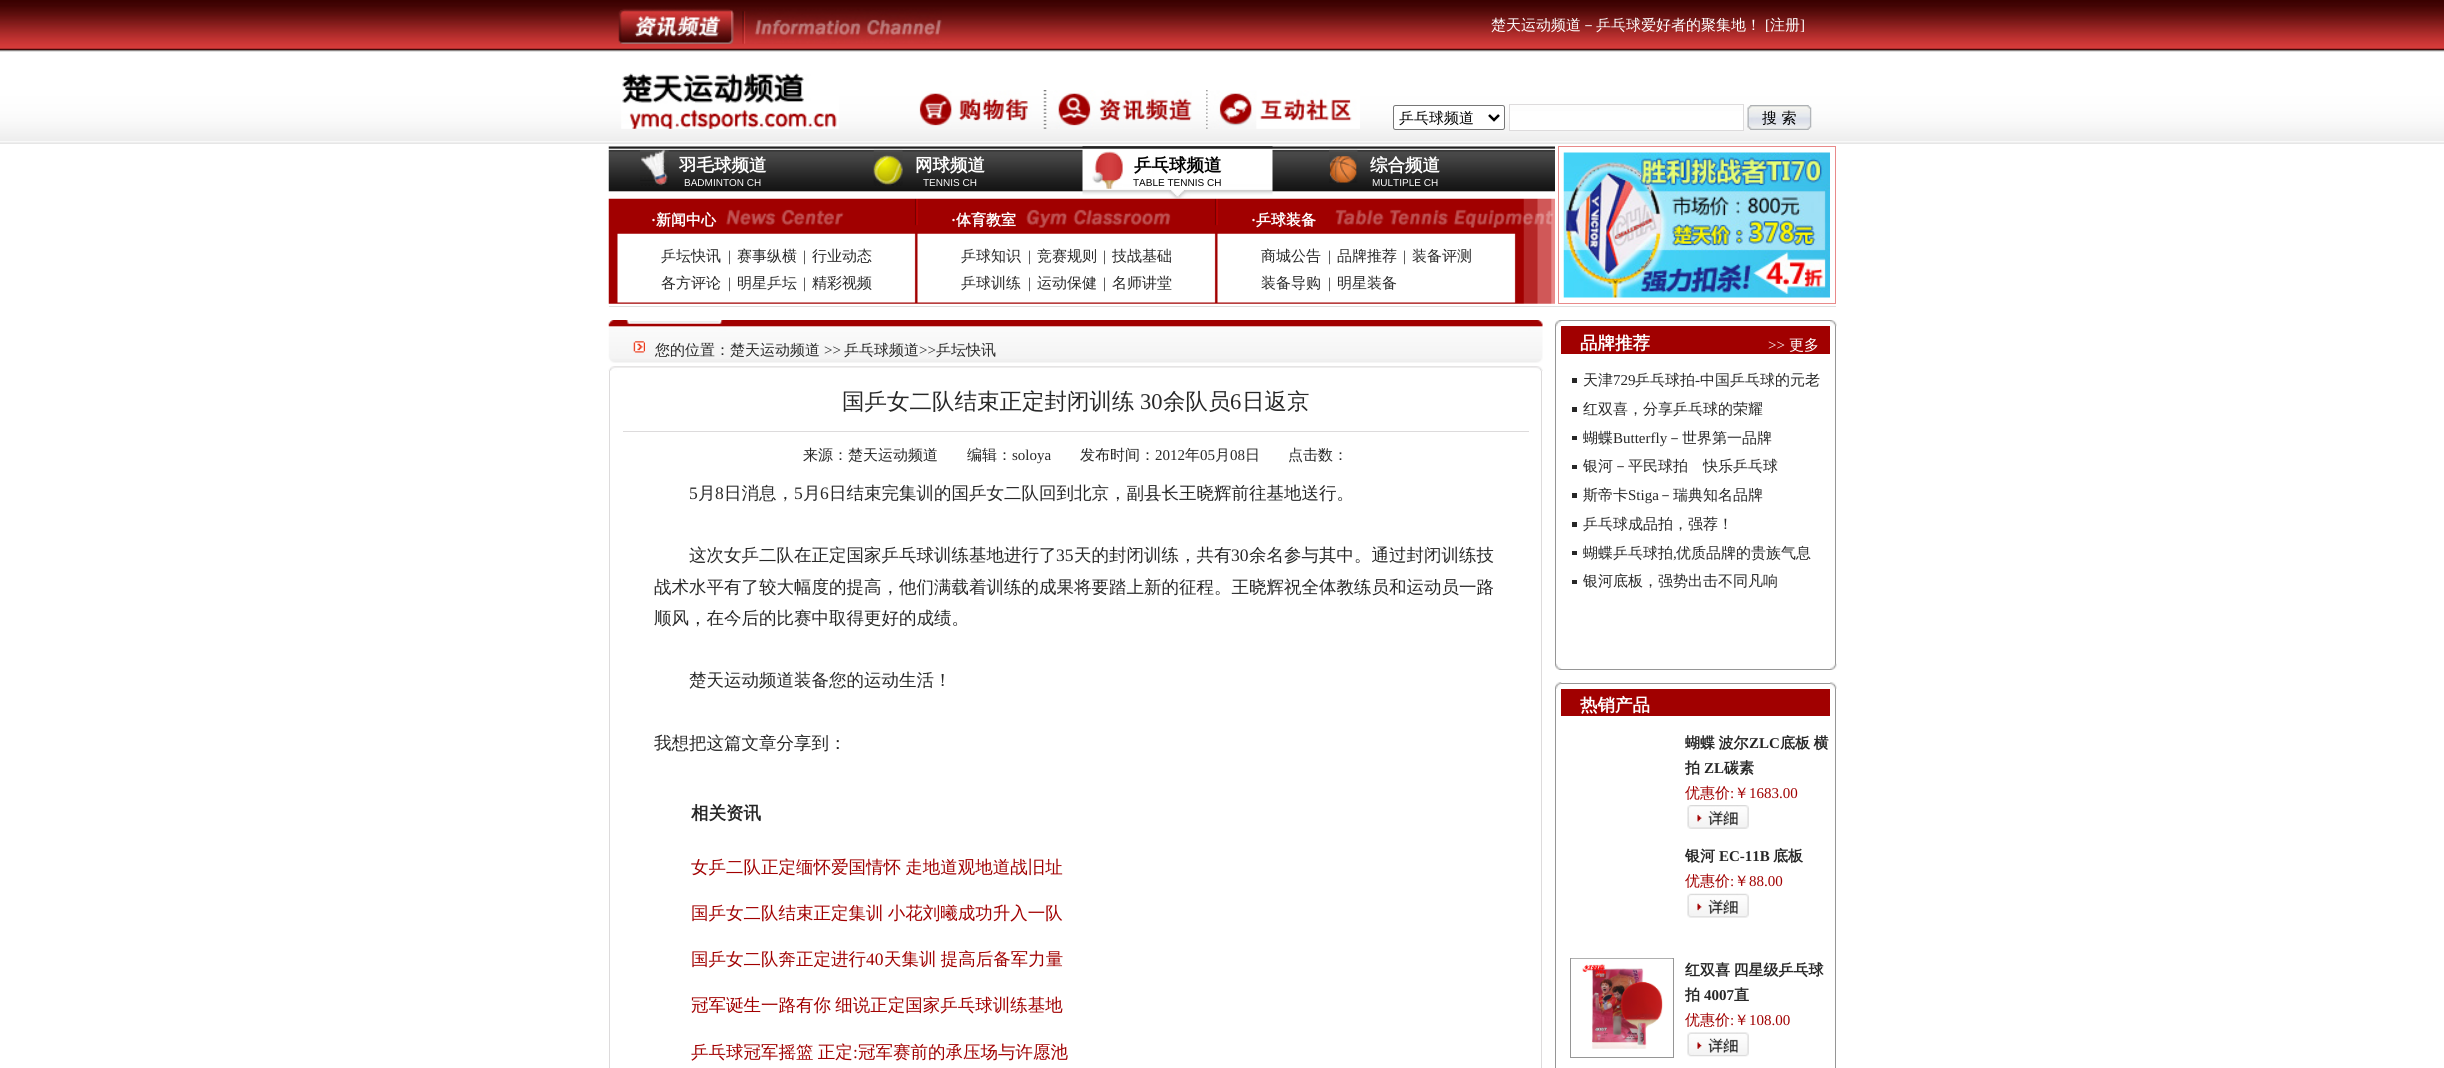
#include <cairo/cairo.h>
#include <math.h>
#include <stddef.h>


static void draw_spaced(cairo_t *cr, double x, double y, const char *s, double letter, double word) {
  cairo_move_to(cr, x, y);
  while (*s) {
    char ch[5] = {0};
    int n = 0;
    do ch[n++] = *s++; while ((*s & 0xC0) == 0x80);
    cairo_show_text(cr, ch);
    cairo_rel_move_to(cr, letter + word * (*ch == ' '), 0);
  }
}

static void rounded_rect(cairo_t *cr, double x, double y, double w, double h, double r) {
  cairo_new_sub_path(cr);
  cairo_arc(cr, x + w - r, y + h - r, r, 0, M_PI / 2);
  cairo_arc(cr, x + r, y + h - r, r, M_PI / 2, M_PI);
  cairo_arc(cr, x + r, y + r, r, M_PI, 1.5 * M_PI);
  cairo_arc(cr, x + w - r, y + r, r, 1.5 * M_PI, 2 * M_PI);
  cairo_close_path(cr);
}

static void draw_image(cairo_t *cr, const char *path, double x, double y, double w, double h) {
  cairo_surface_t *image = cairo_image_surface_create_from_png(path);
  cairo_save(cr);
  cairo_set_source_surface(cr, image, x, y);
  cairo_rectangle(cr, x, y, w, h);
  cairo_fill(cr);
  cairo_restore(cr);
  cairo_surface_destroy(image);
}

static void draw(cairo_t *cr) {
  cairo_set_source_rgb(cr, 1, 1, 1);
  cairo_paint(cr);
  draw_image(cr, "images/1.png", 0, 0, 2444, 144);
  draw_image(cr, "images/2.png", 618, 8, 324, 36);
  draw_image(cr, "images/3.png", 621, 73, 218, 56);
  draw_image(cr, "images/4.png", 919, 90, 126, 39);
  draw_image(cr, "images/5.png", 1045, 90, 147, 39);
  draw_image(cr, "images/6.png", 1206, 90, 154, 39);
  cairo_set_source_rgb(cr, 1, 1, 1);
  rounded_rect(cr, 1393.5, 105.5, 111, 24, 2);
  cairo_fill_preserve(cr);
  cairo_set_source_rgb(cr, 118 / 255.0, 118 / 255.0, 118 / 255.0);
  cairo_set_line_width(cr, 1);
  cairo_stroke(cr);
  cairo_new_path(cr);
  cairo_move_to(cr, 1489, 115);
  cairo_line_to(cr, 1494, 120);
  cairo_line_to(cr, 1499, 115);
  cairo_set_source_rgb(cr, 0, 0, 0);
  cairo_set_line_width(cr, 2.5);
  cairo_stroke(cr);
  cairo_set_source_rgb(cr, 1, 1, 1);
  cairo_rectangle(cr, 1510, 111, 233, 19);
  cairo_fill(cr);
  cairo_rectangle(cr, 1509.5, 104.5, 234, 26);
  cairo_set_source_rgb(cr, 221 / 255.0, 219 / 255.0, 220 / 255.0);
  cairo_set_line_width(cr, 1);
  cairo_stroke(cr);
  draw_image(cr, "images/7.png", 1747, 105, 65, 25);
  cairo_set_source_rgb(cr, 222 / 255.0, 222 / 255.0, 222 / 255.0);
  cairo_rectangle(cr, 609, 306, 1227, 1);
  cairo_fill(cr);
  draw_image(cr, "images/8.png", 608, 146, 947, 46);
  draw_image(cr, "images/9.png", 640, 150, 29, 36);
  draw_image(cr, "images/10.png", 873, 149, 30, 37);
  draw_image(cr, "images/11.png", 1082, 146, 191, 53);
  draw_image(cr, "images/12.png", 1092, 151, 31, 38);
  draw_image(cr, "images/13.png", 1329, 149, 29, 34);
  draw_image(cr, "images/14.png", 608, 198, 947, 106);
  cairo_rectangle(cr, 1558.5, 146.5, 277, 157);
  cairo_set_source_rgb(cr, 233 / 255.0, 138 / 255.0, 138 / 255.0);
  cairo_stroke(cr);
  draw_image(cr, "images/15.png", 1563, 152, 267, 146);
  draw_image(cr, "images/16.png", 608, 320, 935, 43);
  draw_image(cr, "images/17.png", 633, 341, 12, 12);
  draw_image(cr, "images/18.png", 608, 366, 935, 5);
  cairo_set_source_rgb(cr, 221 / 255.0, 219 / 255.0, 220 / 255.0);
  cairo_rectangle(cr, 1541, 371, 1, 697);
  cairo_fill(cr);
  cairo_rectangle(cr, 609, 371, 1, 697);
  cairo_fill(cr);
  cairo_rectangle(cr, 623, 431, 906, 1);
  cairo_fill(cr);
  cairo_rectangle(cr, 1555.5, 320.5, 280, 349);
  cairo_set_source_rgb(cr, 150 / 255.0, 150 / 255.0, 150 / 255.0);
  cairo_stroke(cr);
  draw_image(cr, "images/19.png", 1830, 320, 7, 7);
  cairo_set_source_rgb(cr, 161 / 255.0, 0, 0);
  cairo_rectangle(cr, 1561, 326, 269, 28);
  cairo_fill(cr);
  draw_image(cr, "images/20.png", 1555, 320, 7, 7);
  cairo_set_source_rgb(cr, 39 / 255.0, 39 / 255.0, 39 / 255.0);
  cairo_rectangle(cr, 1572, 378, 5, 5);
  cairo_fill(cr);
  cairo_rectangle(cr, 1572, 407, 5, 5);
  cairo_fill(cr);
  cairo_rectangle(cr, 1572, 436, 5, 4);
  cairo_fill(cr);
  cairo_rectangle(cr, 1572, 465, 5, 4);
  cairo_fill(cr);
  cairo_rectangle(cr, 1572, 493, 5, 5);
  cairo_fill(cr);
  cairo_rectangle(cr, 1572, 522, 5, 5);
  cairo_fill(cr);
  cairo_rectangle(cr, 1572, 551, 5, 4);
  cairo_fill(cr);
  cairo_rectangle(cr, 1572, 580, 5, 4);
  cairo_fill(cr);
  draw_image(cr, "images/21.png", 1830, 663, 7, 7);
  draw_image(cr, "images/22.png", 1555, 663, 7, 7);
  cairo_rectangle(cr, 1555.5, 683.5, 280, 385);
  cairo_set_source_rgb(cr, 150 / 255.0, 150 / 255.0, 150 / 255.0);
  cairo_stroke(cr);
  draw_image(cr, "images/23.png", 1830, 682, 7, 7);
  draw_image(cr, "images/24.png", 1555, 682, 7, 7);
  cairo_set_source_rgb(cr, 161 / 255.0, 0, 0);
  cairo_rectangle(cr, 1561, 689, 269, 27);
  cairo_fill(cr);
  draw_image(cr, "images/25.png", 1687, 805, 62, 24);
  draw_image(cr, "images/26.png", 1687, 893, 62, 25);
  cairo_rectangle(cr, 1570.5, 958.5, 103, 99);
  cairo_set_source_rgb(cr, 150 / 255.0, 150 / 255.0, 150 / 255.0);
  cairo_stroke(cr);
  draw_image(cr, "images/27.png", 1571, 958, 102, 91);
  draw_image(cr, "images/28.png", 1687, 1032, 62, 25);
  cairo_select_font_face(cr, "WenQuanYi Zen Hei Medium", CAIRO_FONT_SLANT_NORMAL, CAIRO_FONT_WEIGHT_NORMAL);
  cairo_set_font_size(cr, 15);
  cairo_set_source_rgb(cr, 1, 1, 1);
  cairo_move_to(cr, 1491, 30);
  cairo_show_text(cr, "楚天运动频道－乒乓球爱好者的聚集地！");
  cairo_select_font_face(cr, "Liberation Serif", CAIRO_FONT_SLANT_NORMAL, CAIRO_FONT_WEIGHT_NORMAL);
  cairo_move_to(cr, 1765, 30);
  cairo_show_text(cr, "[");
  cairo_select_font_face(cr, "WenQuanYi Zen Hei Medium", CAIRO_FONT_SLANT_NORMAL, CAIRO_FONT_WEIGHT_NORMAL);
  cairo_move_to(cr, 1770, 30);
  cairo_show_text(cr, "注册");
  cairo_select_font_face(cr, "Liberation Serif", CAIRO_FONT_SLANT_NORMAL, CAIRO_FONT_WEIGHT_NORMAL);
  cairo_move_to(cr, 1800, 30);
  cairo_show_text(cr, "]");
  cairo_select_font_face(cr, "WenQuanYi Zen Hei Medium", CAIRO_FONT_SLANT_NORMAL, CAIRO_FONT_WEIGHT_NORMAL);
  cairo_set_source_rgb(cr, 0, 0, 0);
  cairo_move_to(cr, 1399, 123);
  cairo_show_text(cr, "乒乓球频道");
  cairo_move_to(cr, 1762, 123);
  cairo_show_text(cr, "搜 索");
  cairo_select_font_face(cr, "WenQuanYi Zen Hei", CAIRO_FONT_SLANT_NORMAL, CAIRO_FONT_WEIGHT_BOLD);
  cairo_set_font_size(cr, 17.5);
  cairo_set_source_rgb(cr, 1, 1, 1);
  cairo_move_to(cr, 679, 171);
  cairo_show_text(cr, "羽毛球频道");
  cairo_select_font_face(cr, "Liberation Sans", CAIRO_FONT_SLANT_NORMAL, CAIRO_FONT_WEIGHT_NORMAL);
  cairo_set_font_size(cr, 10);
  cairo_move_to(cr, 684, 186);
  cairo_show_text(cr, "BADMINTON CH");
  cairo_select_font_face(cr, "WenQuanYi Zen Hei", CAIRO_FONT_SLANT_NORMAL, CAIRO_FONT_WEIGHT_BOLD);
  cairo_set_font_size(cr, 17.5);
  cairo_move_to(cr, 915, 171);
  cairo_show_text(cr, "网球频道");
  cairo_select_font_face(cr, "Liberation Sans", CAIRO_FONT_SLANT_NORMAL, CAIRO_FONT_WEIGHT_NORMAL);
  cairo_set_font_size(cr, 10);
  cairo_move_to(cr, 923, 186);
  cairo_show_text(cr, "TENNIS CH");
  cairo_select_font_face(cr, "WenQuanYi Zen Hei", CAIRO_FONT_SLANT_NORMAL, CAIRO_FONT_WEIGHT_BOLD);
  cairo_set_font_size(cr, 17.5);
  cairo_set_source_rgb(cr, 0, 0, 0);
  cairo_move_to(cr, 1134, 171);
  cairo_show_text(cr, "乒乓球频道");
  cairo_select_font_face(cr, "Liberation Sans", CAIRO_FONT_SLANT_NORMAL, CAIRO_FONT_WEIGHT_NORMAL);
  cairo_set_font_size(cr, 10);
  cairo_move_to(cr, 1133, 186);
  cairo_show_text(cr, "TABLE TENNIS CH");
  cairo_select_font_face(cr, "WenQuanYi Zen Hei", CAIRO_FONT_SLANT_NORMAL, CAIRO_FONT_WEIGHT_BOLD);
  cairo_set_font_size(cr, 17.5);
  cairo_set_source_rgb(cr, 1, 1, 1);
  cairo_move_to(cr, 1370, 171);
  cairo_show_text(cr, "综合频道");
  cairo_select_font_face(cr, "Liberation Sans", CAIRO_FONT_SLANT_NORMAL, CAIRO_FONT_WEIGHT_NORMAL);
  cairo_set_font_size(cr, 10);
  cairo_move_to(cr, 1372, 186);
  cairo_show_text(cr, "MULTIPLE CH");
  cairo_select_font_face(cr, "Liberation Serif", CAIRO_FONT_SLANT_NORMAL, CAIRO_FONT_WEIGHT_BOLD);
  cairo_set_font_size(cr, 15);
  cairo_move_to(cr, 651, 225);
  cairo_show_text(cr, "·");
  cairo_select_font_face(cr, "WenQuanYi Zen Hei", CAIRO_FONT_SLANT_NORMAL, CAIRO_FONT_WEIGHT_BOLD);
  cairo_move_to(cr, 656, 225);
  cairo_show_text(cr, "新闻中心");
  cairo_select_font_face(cr, "WenQuanYi Zen Hei Medium", CAIRO_FONT_SLANT_NORMAL, CAIRO_FONT_WEIGHT_NORMAL);
  cairo_set_source_rgb(cr, 39 / 255.0, 39 / 255.0, 39 / 255.0);
  cairo_move_to(cr, 661, 261);
  cairo_show_text(cr, "乒坛快讯");
  cairo_select_font_face(cr, "Liberation Serif", CAIRO_FONT_SLANT_NORMAL, CAIRO_FONT_WEIGHT_NORMAL);
  cairo_move_to(cr, 728, 261);
  cairo_show_text(cr, "|");
  cairo_select_font_face(cr, "WenQuanYi Zen Hei Medium", CAIRO_FONT_SLANT_NORMAL, CAIRO_FONT_WEIGHT_NORMAL);
  cairo_move_to(cr, 737, 261);
  cairo_show_text(cr, "赛事纵横");
  cairo_select_font_face(cr, "Liberation Serif", CAIRO_FONT_SLANT_NORMAL, CAIRO_FONT_WEIGHT_NORMAL);
  cairo_move_to(cr, 803, 261);
  cairo_show_text(cr, "|");
  cairo_select_font_face(cr, "WenQuanYi Zen Hei Medium", CAIRO_FONT_SLANT_NORMAL, CAIRO_FONT_WEIGHT_NORMAL);
  cairo_move_to(cr, 812, 261);
  cairo_show_text(cr, "行业动态");
  cairo_move_to(cr, 661, 288);
  cairo_show_text(cr, "各方评论");
  cairo_select_font_face(cr, "Liberation Serif", CAIRO_FONT_SLANT_NORMAL, CAIRO_FONT_WEIGHT_NORMAL);
  cairo_move_to(cr, 728, 288);
  cairo_show_text(cr, "|");
  cairo_select_font_face(cr, "WenQuanYi Zen Hei Medium", CAIRO_FONT_SLANT_NORMAL, CAIRO_FONT_WEIGHT_NORMAL);
  cairo_move_to(cr, 737, 288);
  cairo_show_text(cr, "明星乒坛");
  cairo_select_font_face(cr, "Liberation Serif", CAIRO_FONT_SLANT_NORMAL, CAIRO_FONT_WEIGHT_NORMAL);
  cairo_move_to(cr, 803, 288);
  cairo_show_text(cr, "|");
  cairo_select_font_face(cr, "WenQuanYi Zen Hei Medium", CAIRO_FONT_SLANT_NORMAL, CAIRO_FONT_WEIGHT_NORMAL);
  cairo_move_to(cr, 812, 288);
  cairo_show_text(cr, "精彩视频");
  cairo_select_font_face(cr, "Liberation Serif", CAIRO_FONT_SLANT_NORMAL, CAIRO_FONT_WEIGHT_BOLD);
  cairo_set_source_rgb(cr, 1, 1, 1);
  cairo_move_to(cr, 951, 225);
  cairo_show_text(cr, "·");
  cairo_select_font_face(cr, "WenQuanYi Zen Hei", CAIRO_FONT_SLANT_NORMAL, CAIRO_FONT_WEIGHT_BOLD);
  cairo_move_to(cr, 956, 225);
  cairo_show_text(cr, "体育教室");
  cairo_select_font_face(cr, "WenQuanYi Zen Hei Medium", CAIRO_FONT_SLANT_NORMAL, CAIRO_FONT_WEIGHT_NORMAL);
  cairo_set_source_rgb(cr, 39 / 255.0, 39 / 255.0, 39 / 255.0);
  cairo_move_to(cr, 961, 261);
  cairo_show_text(cr, "乒球知识");
  cairo_select_font_face(cr, "Liberation Serif", CAIRO_FONT_SLANT_NORMAL, CAIRO_FONT_WEIGHT_NORMAL);
  cairo_move_to(cr, 1028, 261);
  cairo_show_text(cr, "|");
  cairo_select_font_face(cr, "WenQuanYi Zen Hei Medium", CAIRO_FONT_SLANT_NORMAL, CAIRO_FONT_WEIGHT_NORMAL);
  cairo_move_to(cr, 1037, 261);
  cairo_show_text(cr, "竞赛规则");
  cairo_select_font_face(cr, "Liberation Serif", CAIRO_FONT_SLANT_NORMAL, CAIRO_FONT_WEIGHT_NORMAL);
  cairo_move_to(cr, 1103, 261);
  cairo_show_text(cr, "|");
  cairo_select_font_face(cr, "WenQuanYi Zen Hei Medium", CAIRO_FONT_SLANT_NORMAL, CAIRO_FONT_WEIGHT_NORMAL);
  cairo_move_to(cr, 1112, 261);
  cairo_show_text(cr, "技战基础");
  cairo_move_to(cr, 961, 288);
  cairo_show_text(cr, "乒球训练");
  cairo_select_font_face(cr, "Liberation Serif", CAIRO_FONT_SLANT_NORMAL, CAIRO_FONT_WEIGHT_NORMAL);
  cairo_move_to(cr, 1028, 288);
  cairo_show_text(cr, "|");
  cairo_select_font_face(cr, "WenQuanYi Zen Hei Medium", CAIRO_FONT_SLANT_NORMAL, CAIRO_FONT_WEIGHT_NORMAL);
  cairo_move_to(cr, 1037, 288);
  cairo_show_text(cr, "运动保健");
  cairo_select_font_face(cr, "Liberation Serif", CAIRO_FONT_SLANT_NORMAL, CAIRO_FONT_WEIGHT_NORMAL);
  cairo_move_to(cr, 1103, 288);
  cairo_show_text(cr, "|");
  cairo_select_font_face(cr, "WenQuanYi Zen Hei Medium", CAIRO_FONT_SLANT_NORMAL, CAIRO_FONT_WEIGHT_NORMAL);
  cairo_move_to(cr, 1112, 288);
  cairo_show_text(cr, "名师讲堂");
  cairo_select_font_face(cr, "Liberation Serif", CAIRO_FONT_SLANT_NORMAL, CAIRO_FONT_WEIGHT_BOLD);
  cairo_set_source_rgb(cr, 1, 1, 1);
  cairo_move_to(cr, 1251, 225);
  cairo_show_text(cr, "·");
  cairo_select_font_face(cr, "WenQuanYi Zen Hei", CAIRO_FONT_SLANT_NORMAL, CAIRO_FONT_WEIGHT_BOLD);
  cairo_move_to(cr, 1256, 225);
  cairo_show_text(cr, "乒球装备");
  cairo_select_font_face(cr, "WenQuanYi Zen Hei Medium", CAIRO_FONT_SLANT_NORMAL, CAIRO_FONT_WEIGHT_NORMAL);
  cairo_set_source_rgb(cr, 39 / 255.0, 39 / 255.0, 39 / 255.0);
  cairo_move_to(cr, 1261, 261);
  cairo_show_text(cr, "商城公告");
  cairo_select_font_face(cr, "Liberation Serif", CAIRO_FONT_SLANT_NORMAL, CAIRO_FONT_WEIGHT_NORMAL);
  cairo_move_to(cr, 1328, 261);
  cairo_show_text(cr, "|");
  cairo_select_font_face(cr, "WenQuanYi Zen Hei Medium", CAIRO_FONT_SLANT_NORMAL, CAIRO_FONT_WEIGHT_NORMAL);
  cairo_move_to(cr, 1337, 261);
  cairo_show_text(cr, "品牌推荐");
  cairo_select_font_face(cr, "Liberation Serif", CAIRO_FONT_SLANT_NORMAL, CAIRO_FONT_WEIGHT_NORMAL);
  cairo_move_to(cr, 1403, 261);
  cairo_show_text(cr, "|");
  cairo_select_font_face(cr, "WenQuanYi Zen Hei Medium", CAIRO_FONT_SLANT_NORMAL, CAIRO_FONT_WEIGHT_NORMAL);
  cairo_move_to(cr, 1412, 261);
  cairo_show_text(cr, "装备评测");
  cairo_move_to(cr, 1261, 288);
  cairo_show_text(cr, "装备导购");
  cairo_select_font_face(cr, "Liberation Serif", CAIRO_FONT_SLANT_NORMAL, CAIRO_FONT_WEIGHT_NORMAL);
  cairo_move_to(cr, 1328, 288);
  cairo_show_text(cr, "|");
  cairo_select_font_face(cr, "WenQuanYi Zen Hei Medium", CAIRO_FONT_SLANT_NORMAL, CAIRO_FONT_WEIGHT_NORMAL);
  cairo_move_to(cr, 1337, 288);
  cairo_show_text(cr, "明星装备");
  cairo_move_to(cr, 655, 355);
  cairo_show_text(cr, "您的位置：楚天运动频道");
  cairo_select_font_face(cr, "Liberation Serif", CAIRO_FONT_SLANT_NORMAL, CAIRO_FONT_WEIGHT_NORMAL);
  cairo_move_to(cr, 824, 355);
  cairo_show_text(cr, ">>");
  cairo_select_font_face(cr, "WenQuanYi Zen Hei Medium", CAIRO_FONT_SLANT_NORMAL, CAIRO_FONT_WEIGHT_NORMAL);
  cairo_move_to(cr, 844, 355);
  cairo_show_text(cr, "乒乓球频道");
  cairo_select_font_face(cr, "Liberation Serif", CAIRO_FONT_SLANT_NORMAL, CAIRO_FONT_WEIGHT_NORMAL);
  cairo_move_to(cr, 919, 355);
  cairo_show_text(cr, ">>");
  cairo_select_font_face(cr, "WenQuanYi Zen Hei Medium", CAIRO_FONT_SLANT_NORMAL, CAIRO_FONT_WEIGHT_NORMAL);
  cairo_move_to(cr, 936, 355);
  cairo_show_text(cr, "乒坛快讯");
  cairo_set_font_size(cr, 22.5);
  cairo_move_to(cr, 842, 409);
  cairo_show_text(cr, "国乒女二队结束正定封闭训练");
  cairo_select_font_face(cr, "Liberation Serif", CAIRO_FONT_SLANT_NORMAL, CAIRO_FONT_WEIGHT_NORMAL);
  cairo_move_to(cr, 1140, 409);
  cairo_show_text(cr, "30");
  cairo_select_font_face(cr, "WenQuanYi Zen Hei Medium", CAIRO_FONT_SLANT_NORMAL, CAIRO_FONT_WEIGHT_NORMAL);
  cairo_move_to(cr, 1163, 409);
  cairo_show_text(cr, "余队员");
  cairo_select_font_face(cr, "Liberation Serif", CAIRO_FONT_SLANT_NORMAL, CAIRO_FONT_WEIGHT_NORMAL);
  cairo_move_to(cr, 1230, 409);
  cairo_show_text(cr, "6");
  cairo_select_font_face(cr, "WenQuanYi Zen Hei Medium", CAIRO_FONT_SLANT_NORMAL, CAIRO_FONT_WEIGHT_NORMAL);
  cairo_move_to(cr, 1242, 409);
  cairo_show_text(cr, "日返京");
  cairo_set_font_size(cr, 15);
  cairo_move_to(cr, 803, 460);
  cairo_show_text(cr, "来源：楚天运动频道");
  cairo_move_to(cr, 967, 460);
  cairo_show_text(cr, "编辑：");
  cairo_select_font_face(cr, "Liberation Serif", CAIRO_FONT_SLANT_NORMAL, CAIRO_FONT_WEIGHT_NORMAL);
  cairo_move_to(cr, 1012, 460);
  cairo_show_text(cr, "soloya");
  cairo_select_font_face(cr, "WenQuanYi Zen Hei Medium", CAIRO_FONT_SLANT_NORMAL, CAIRO_FONT_WEIGHT_NORMAL);
  cairo_move_to(cr, 1080, 460);
  cairo_show_text(cr, "发布时间：");
  cairo_select_font_face(cr, "Liberation Serif", CAIRO_FONT_SLANT_NORMAL, CAIRO_FONT_WEIGHT_NORMAL);
  cairo_move_to(cr, 1155, 460);
  cairo_show_text(cr, "2012");
  cairo_select_font_face(cr, "WenQuanYi Zen Hei Medium", CAIRO_FONT_SLANT_NORMAL, CAIRO_FONT_WEIGHT_NORMAL);
  cairo_move_to(cr, 1185, 460);
  cairo_show_text(cr, "年");
  cairo_select_font_face(cr, "Liberation Serif", CAIRO_FONT_SLANT_NORMAL, CAIRO_FONT_WEIGHT_NORMAL);
  cairo_move_to(cr, 1200, 460);
  cairo_show_text(cr, "05");
  cairo_select_font_face(cr, "WenQuanYi Zen Hei Medium", CAIRO_FONT_SLANT_NORMAL, CAIRO_FONT_WEIGHT_NORMAL);
  cairo_move_to(cr, 1215, 460);
  cairo_show_text(cr, "月");
  cairo_select_font_face(cr, "Liberation Serif", CAIRO_FONT_SLANT_NORMAL, CAIRO_FONT_WEIGHT_NORMAL);
  cairo_move_to(cr, 1230, 460);
  cairo_show_text(cr, "08");
  cairo_select_font_face(cr, "WenQuanYi Zen Hei Medium", CAIRO_FONT_SLANT_NORMAL, CAIRO_FONT_WEIGHT_NORMAL);
  cairo_move_to(cr, 1245, 460);
  cairo_show_text(cr, "日");
  cairo_move_to(cr, 1288, 460);
  cairo_show_text(cr, "点击数：");
  cairo_select_font_face(cr, "Liberation Serif", CAIRO_FONT_SLANT_NORMAL, CAIRO_FONT_WEIGHT_NORMAL);
  cairo_set_font_size(cr, 17.5);
  cairo_move_to(cr, 689, 499);
  cairo_show_text(cr, "5");
  cairo_select_font_face(cr, "WenQuanYi Zen Hei Medium", CAIRO_FONT_SLANT_NORMAL, CAIRO_FONT_WEIGHT_NORMAL);
  cairo_move_to(cr, 698, 499);
  cairo_show_text(cr, "月");
  cairo_select_font_face(cr, "Liberation Serif", CAIRO_FONT_SLANT_NORMAL, CAIRO_FONT_WEIGHT_NORMAL);
  cairo_move_to(cr, 715, 499);
  cairo_show_text(cr, "8");
  cairo_select_font_face(cr, "WenQuanYi Zen Hei Medium", CAIRO_FONT_SLANT_NORMAL, CAIRO_FONT_WEIGHT_NORMAL);
  cairo_move_to(cr, 724, 499);
  cairo_show_text(cr, "日消息，");
  cairo_select_font_face(cr, "Liberation Serif", CAIRO_FONT_SLANT_NORMAL, CAIRO_FONT_WEIGHT_NORMAL);
  cairo_move_to(cr, 794, 499);
  cairo_show_text(cr, "5");
  cairo_select_font_face(cr, "WenQuanYi Zen Hei Medium", CAIRO_FONT_SLANT_NORMAL, CAIRO_FONT_WEIGHT_NORMAL);
  cairo_move_to(cr, 803, 499);
  cairo_show_text(cr, "月");
  cairo_select_font_face(cr, "Liberation Serif", CAIRO_FONT_SLANT_NORMAL, CAIRO_FONT_WEIGHT_NORMAL);
  cairo_move_to(cr, 820, 499);
  cairo_show_text(cr, "6");
  cairo_select_font_face(cr, "WenQuanYi Zen Hei Medium", CAIRO_FONT_SLANT_NORMAL, CAIRO_FONT_WEIGHT_NORMAL);
  cairo_move_to(cr, 829, 499);
  cairo_show_text(cr, "日结束完集训的国乒女二队回到北京，副县长王晓辉前往基地送行。");
  cairo_move_to(cr, 689, 561);
  cairo_show_text(cr, "这次女乒二队在正定国家乒乓球训练基地进行了");
  cairo_select_font_face(cr, "Liberation Serif", CAIRO_FONT_SLANT_NORMAL, CAIRO_FONT_WEIGHT_NORMAL);
  cairo_move_to(cr, 1056, 561);
  cairo_show_text(cr, "35");
  cairo_select_font_face(cr, "WenQuanYi Zen Hei Medium", CAIRO_FONT_SLANT_NORMAL, CAIRO_FONT_WEIGHT_NORMAL);
  cairo_move_to(cr, 1074, 561);
  cairo_show_text(cr, "天的封闭训练，共有");
  cairo_select_font_face(cr, "Liberation Serif", CAIRO_FONT_SLANT_NORMAL, CAIRO_FONT_WEIGHT_NORMAL);
  cairo_move_to(cr, 1231, 561);
  cairo_show_text(cr, "30");
  cairo_select_font_face(cr, "WenQuanYi Zen Hei Medium", CAIRO_FONT_SLANT_NORMAL, CAIRO_FONT_WEIGHT_NORMAL);
  cairo_move_to(cr, 1249, 561);
  cairo_show_text(cr, "余名参与其中。通过封闭训练技");
  cairo_move_to(cr, 654, 593);
  cairo_show_text(cr, "战术水平有了较大幅度的提高，他们满载着训练的成果将要踏上新的征程。王晓辉祝全体教练员和运动员一路");
  cairo_move_to(cr, 654, 624);
  cairo_show_text(cr, "顺风，在今后的比赛中取得更好的成绩。");
  cairo_move_to(cr, 689, 686);
  cairo_show_text(cr, "楚天运动频道装备您的运动生活！");
  cairo_move_to(cr, 654, 749);
  cairo_show_text(cr, "我想把这篇文章分享到：");
  cairo_select_font_face(cr, "WenQuanYi Zen Hei", CAIRO_FONT_SLANT_NORMAL, CAIRO_FONT_WEIGHT_BOLD);
  cairo_move_to(cr, 691, 819);
  cairo_show_text(cr, "相关资讯");
  cairo_select_font_face(cr, "WenQuanYi Zen Hei Medium", CAIRO_FONT_SLANT_NORMAL, CAIRO_FONT_WEIGHT_NORMAL);
  cairo_set_source_rgb(cr, 161 / 255.0, 0, 0);
  draw_spaced(cr, 691, 873, "女乒二队正定缅怀爱国情怀 走地道观地道战旧址", 0, -1);
  draw_spaced(cr, 691, 919, "国乒女二队结束正定集训 小花刘曦成功升入一队", 0, -1);
  cairo_move_to(cr, 691, 965);
  cairo_show_text(cr, "国乒女二队奔正定进行");
  cairo_select_font_face(cr, "Liberation Serif", CAIRO_FONT_SLANT_NORMAL, CAIRO_FONT_WEIGHT_NORMAL);
  cairo_move_to(cr, 866, 965);
  cairo_show_text(cr, "40");
  cairo_select_font_face(cr, "WenQuanYi Zen Hei Medium", CAIRO_FONT_SLANT_NORMAL, CAIRO_FONT_WEIGHT_NORMAL);
  draw_spaced(cr, 884, 965, "天集训 提高后备军力量", 0, -1);
  draw_spaced(cr, 691, 1011, "冠军诞生一路有你 细说正定国家乒乓球训练基地", 0, -1);
  draw_spaced(cr, 691, 1058, "乒乓球冠军摇篮 正定", 0, -1);
  cairo_select_font_face(cr, "Liberation Serif", CAIRO_FONT_SLANT_NORMAL, CAIRO_FONT_WEIGHT_NORMAL);
  cairo_move_to(cr, 853, 1058);
  cairo_show_text(cr, ":");
  cairo_select_font_face(cr, "WenQuanYi Zen Hei Medium", CAIRO_FONT_SLANT_NORMAL, CAIRO_FONT_WEIGHT_NORMAL);
  cairo_move_to(cr, 858, 1058);
  cairo_show_text(cr, "冠军赛前的承压场与许愿池");
  cairo_select_font_face(cr, "WenQuanYi Zen Hei", CAIRO_FONT_SLANT_NORMAL, CAIRO_FONT_WEIGHT_BOLD);
  cairo_set_source_rgb(cr, 1, 1, 1);
  cairo_move_to(cr, 1580, 349);
  cairo_show_text(cr, "品牌推荐");
  cairo_select_font_face(cr, "Liberation Serif", CAIRO_FONT_SLANT_NORMAL, CAIRO_FONT_WEIGHT_NORMAL);
  cairo_set_font_size(cr, 15);
  cairo_move_to(cr, 1768, 350);
  cairo_show_text(cr, ">>");
  cairo_select_font_face(cr, "WenQuanYi Zen Hei Medium", CAIRO_FONT_SLANT_NORMAL, CAIRO_FONT_WEIGHT_NORMAL);
  cairo_move_to(cr, 1789, 350);
  cairo_show_text(cr, "更多");
  cairo_set_source_rgb(cr, 39 / 255.0, 39 / 255.0, 39 / 255.0);
  cairo_move_to(cr, 1583, 385);
  cairo_show_text(cr, "天津");
  cairo_select_font_face(cr, "Liberation Serif", CAIRO_FONT_SLANT_NORMAL, CAIRO_FONT_WEIGHT_NORMAL);
  cairo_move_to(cr, 1613, 385);
  cairo_show_text(cr, "729");
  cairo_select_font_face(cr, "WenQuanYi Zen Hei Medium", CAIRO_FONT_SLANT_NORMAL, CAIRO_FONT_WEIGHT_NORMAL);
  cairo_move_to(cr, 1635, 385);
  cairo_show_text(cr, "乒乓球拍");
  cairo_select_font_face(cr, "Liberation Serif", CAIRO_FONT_SLANT_NORMAL, CAIRO_FONT_WEIGHT_NORMAL);
  cairo_move_to(cr, 1695, 385);
  cairo_show_text(cr, "-");
  cairo_select_font_face(cr, "WenQuanYi Zen Hei Medium", CAIRO_FONT_SLANT_NORMAL, CAIRO_FONT_WEIGHT_NORMAL);
  cairo_move_to(cr, 1700, 385);
  cairo_show_text(cr, "中国乒乓球的元老");
  cairo_move_to(cr, 1583, 414);
  cairo_show_text(cr, "红双喜，分享乒乓球的荣耀");
  cairo_move_to(cr, 1583, 443);
  cairo_show_text(cr, "蝴蝶");
  cairo_select_font_face(cr, "Liberation Serif", CAIRO_FONT_SLANT_NORMAL, CAIRO_FONT_WEIGHT_NORMAL);
  cairo_move_to(cr, 1613, 443);
  cairo_show_text(cr, "Butterfly");
  cairo_select_font_face(cr, "WenQuanYi Zen Hei Medium", CAIRO_FONT_SLANT_NORMAL, CAIRO_FONT_WEIGHT_NORMAL);
  cairo_move_to(cr, 1667, 443);
  cairo_show_text(cr, "－世界第一品牌");
  cairo_move_to(cr, 1583, 471);
  cairo_show_text(cr, "银河－平民球拍　快乐乒乓球");
  cairo_move_to(cr, 1583, 500);
  cairo_show_text(cr, "斯帝卡");
  cairo_select_font_face(cr, "Liberation Serif", CAIRO_FONT_SLANT_NORMAL, CAIRO_FONT_WEIGHT_NORMAL);
  cairo_move_to(cr, 1628, 500);
  cairo_show_text(cr, "Stiga");
  cairo_select_font_face(cr, "WenQuanYi Zen Hei Medium", CAIRO_FONT_SLANT_NORMAL, CAIRO_FONT_WEIGHT_NORMAL);
  cairo_move_to(cr, 1658, 500);
  cairo_show_text(cr, "－瑞典知名品牌");
  cairo_move_to(cr, 1583, 529);
  cairo_show_text(cr, "乒乓球成品拍，强荐！");
  cairo_move_to(cr, 1583, 558);
  cairo_show_text(cr, "蝴蝶乒乓球拍");
  cairo_select_font_face(cr, "Liberation Serif", CAIRO_FONT_SLANT_NORMAL, CAIRO_FONT_WEIGHT_NORMAL);
  cairo_move_to(cr, 1673, 558);
  cairo_show_text(cr, ",");
  cairo_select_font_face(cr, "WenQuanYi Zen Hei Medium", CAIRO_FONT_SLANT_NORMAL, CAIRO_FONT_WEIGHT_NORMAL);
  cairo_move_to(cr, 1676, 558);
  cairo_show_text(cr, "优质品牌的贵族气息");
  cairo_move_to(cr, 1583, 586);
  cairo_show_text(cr, "银河底板，强势出击不同凡响");
  cairo_select_font_face(cr, "WenQuanYi Zen Hei", CAIRO_FONT_SLANT_NORMAL, CAIRO_FONT_WEIGHT_BOLD);
  cairo_set_font_size(cr, 17.5);
  cairo_set_source_rgb(cr, 1, 1, 1);
  cairo_move_to(cr, 1580, 711);
  cairo_show_text(cr, "热销产品");
  cairo_set_font_size(cr, 15);
  cairo_set_source_rgb(cr, 39 / 255.0, 39 / 255.0, 39 / 255.0);
  draw_spaced(cr, 1685, 748, "蝴蝶 波尔", 0, -1);
  cairo_select_font_face(cr, "Liberation Serif", CAIRO_FONT_SLANT_NORMAL, CAIRO_FONT_WEIGHT_BOLD);
  cairo_move_to(cr, 1749, 748);
  cairo_show_text(cr, "ZLC");
  cairo_select_font_face(cr, "WenQuanYi Zen Hei", CAIRO_FONT_SLANT_NORMAL, CAIRO_FONT_WEIGHT_BOLD);
  draw_spaced(cr, 1780, 748, "底板 横", 0, -1);
  cairo_move_to(cr, 1685, 773);
  cairo_show_text(cr, "拍");
  cairo_select_font_face(cr, "Liberation Serif", CAIRO_FONT_SLANT_NORMAL, CAIRO_FONT_WEIGHT_BOLD);
  cairo_move_to(cr, 1704, 773);
  cairo_show_text(cr, "ZL");
  cairo_select_font_face(cr, "WenQuanYi Zen Hei", CAIRO_FONT_SLANT_NORMAL, CAIRO_FONT_WEIGHT_BOLD);
  cairo_move_to(cr, 1724, 773);
  cairo_show_text(cr, "碳素");
  cairo_select_font_face(cr, "WenQuanYi Zen Hei Medium", CAIRO_FONT_SLANT_NORMAL, CAIRO_FONT_WEIGHT_NORMAL);
  cairo_set_source_rgb(cr, 161 / 255.0, 0, 0);
  cairo_move_to(cr, 1685, 798);
  cairo_show_text(cr, "优惠价");
  cairo_select_font_face(cr, "Liberation Serif", CAIRO_FONT_SLANT_NORMAL, CAIRO_FONT_WEIGHT_NORMAL);
  cairo_move_to(cr, 1730, 798);
  cairo_show_text(cr, ":");
  cairo_select_font_face(cr, "WenQuanYi Zen Hei Medium", CAIRO_FONT_SLANT_NORMAL, CAIRO_FONT_WEIGHT_NORMAL);
  cairo_move_to(cr, 1734, 798);
  cairo_show_text(cr, "￥");
  cairo_select_font_face(cr, "Liberation Serif", CAIRO_FONT_SLANT_NORMAL, CAIRO_FONT_WEIGHT_NORMAL);
  cairo_move_to(cr, 1749, 798);
  cairo_show_text(cr, "1683.00");
  cairo_select_font_face(cr, "WenQuanYi Zen Hei", CAIRO_FONT_SLANT_NORMAL, CAIRO_FONT_WEIGHT_BOLD);
  cairo_set_source_rgb(cr, 39 / 255.0, 39 / 255.0, 39 / 255.0);
  cairo_move_to(cr, 1685, 861);
  cairo_show_text(cr, "银河");
  cairo_select_font_face(cr, "Liberation Serif", CAIRO_FONT_SLANT_NORMAL, CAIRO_FONT_WEIGHT_BOLD);
  cairo_move_to(cr, 1719, 861);
  cairo_show_text(cr, "EC-11B");
  cairo_select_font_face(cr, "WenQuanYi Zen Hei", CAIRO_FONT_SLANT_NORMAL, CAIRO_FONT_WEIGHT_BOLD);
  cairo_move_to(cr, 1773, 861);
  cairo_show_text(cr, "底板");
  cairo_select_font_face(cr, "WenQuanYi Zen Hei Medium", CAIRO_FONT_SLANT_NORMAL, CAIRO_FONT_WEIGHT_NORMAL);
  cairo_set_source_rgb(cr, 161 / 255.0, 0, 0);
  cairo_move_to(cr, 1685, 886);
  cairo_show_text(cr, "优惠价");
  cairo_select_font_face(cr, "Liberation Serif", CAIRO_FONT_SLANT_NORMAL, CAIRO_FONT_WEIGHT_NORMAL);
  cairo_move_to(cr, 1730, 886);
  cairo_show_text(cr, ":");
  cairo_select_font_face(cr, "WenQuanYi Zen Hei Medium", CAIRO_FONT_SLANT_NORMAL, CAIRO_FONT_WEIGHT_NORMAL);
  cairo_move_to(cr, 1734, 886);
  cairo_show_text(cr, "￥");
  cairo_select_font_face(cr, "Liberation Serif", CAIRO_FONT_SLANT_NORMAL, CAIRO_FONT_WEIGHT_NORMAL);
  cairo_move_to(cr, 1749, 886);
  cairo_show_text(cr, "88.00");
  cairo_select_font_face(cr, "WenQuanYi Zen Hei", CAIRO_FONT_SLANT_NORMAL, CAIRO_FONT_WEIGHT_BOLD);
  cairo_set_source_rgb(cr, 39 / 255.0, 39 / 255.0, 39 / 255.0);
  draw_spaced(cr, 1685, 975, "红双喜 四星级乒乓球", 0, -1);
  cairo_move_to(cr, 1685, 1000);
  cairo_show_text(cr, "拍");
  cairo_select_font_face(cr, "Liberation Serif", CAIRO_FONT_SLANT_NORMAL, CAIRO_FONT_WEIGHT_BOLD);
  cairo_move_to(cr, 1704, 1000);
  cairo_show_text(cr, "4007");
  cairo_select_font_face(cr, "WenQuanYi Zen Hei", CAIRO_FONT_SLANT_NORMAL, CAIRO_FONT_WEIGHT_BOLD);
  cairo_move_to(cr, 1734, 1000);
  cairo_show_text(cr, "直");
  cairo_select_font_face(cr, "WenQuanYi Zen Hei Medium", CAIRO_FONT_SLANT_NORMAL, CAIRO_FONT_WEIGHT_NORMAL);
  cairo_set_source_rgb(cr, 161 / 255.0, 0, 0);
  cairo_move_to(cr, 1685, 1025);
  cairo_show_text(cr, "优惠价");
  cairo_select_font_face(cr, "Liberation Serif", CAIRO_FONT_SLANT_NORMAL, CAIRO_FONT_WEIGHT_NORMAL);
  cairo_move_to(cr, 1730, 1025);
  cairo_show_text(cr, ":");
  cairo_select_font_face(cr, "WenQuanYi Zen Hei Medium", CAIRO_FONT_SLANT_NORMAL, CAIRO_FONT_WEIGHT_NORMAL);
  cairo_move_to(cr, 1734, 1025);
  cairo_show_text(cr, "￥");
  cairo_select_font_face(cr, "Liberation Serif", CAIRO_FONT_SLANT_NORMAL, CAIRO_FONT_WEIGHT_NORMAL);
  cairo_move_to(cr, 1749, 1025);
  cairo_show_text(cr, "108.00");
}

int main(void) {
  cairo_surface_t *surface = cairo_image_surface_create(CAIRO_FORMAT_RGB24, 2444, 1068);
  cairo_t *cr = cairo_create(surface);
  cairo_font_options_t *options = cairo_font_options_create();
  cairo_font_options_set_hint_metrics(options, CAIRO_HINT_METRICS_OFF);
  cairo_font_options_set_hint_style(options, CAIRO_HINT_STYLE_NONE);
  cairo_set_font_options(cr, options);
  cairo_set_miter_limit(cr, 4);
  draw(cr);
  cairo_surface_write_to_png(surface, "out.png");
  cairo_font_options_destroy(options);
  cairo_destroy(cr);
  cairo_surface_destroy(surface);
  return 0;
}
